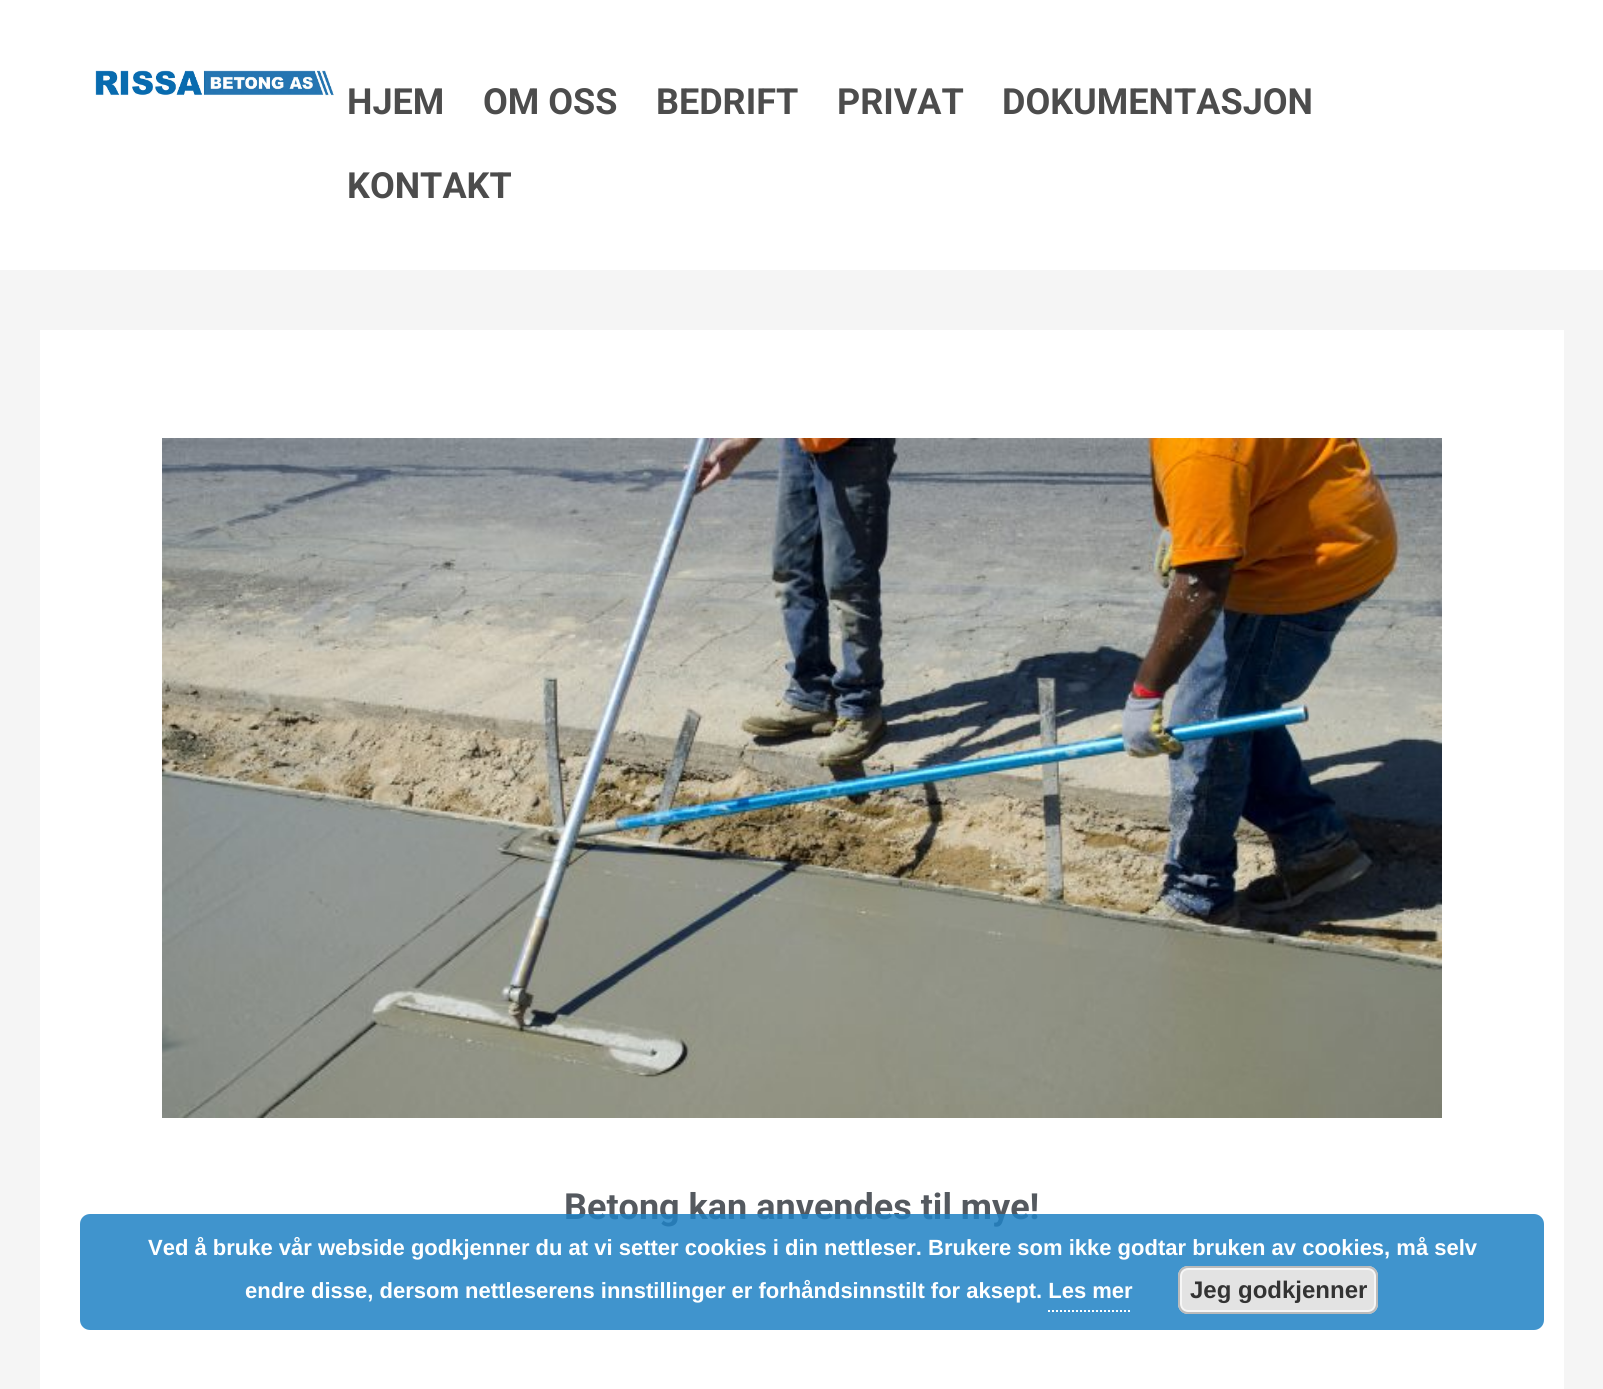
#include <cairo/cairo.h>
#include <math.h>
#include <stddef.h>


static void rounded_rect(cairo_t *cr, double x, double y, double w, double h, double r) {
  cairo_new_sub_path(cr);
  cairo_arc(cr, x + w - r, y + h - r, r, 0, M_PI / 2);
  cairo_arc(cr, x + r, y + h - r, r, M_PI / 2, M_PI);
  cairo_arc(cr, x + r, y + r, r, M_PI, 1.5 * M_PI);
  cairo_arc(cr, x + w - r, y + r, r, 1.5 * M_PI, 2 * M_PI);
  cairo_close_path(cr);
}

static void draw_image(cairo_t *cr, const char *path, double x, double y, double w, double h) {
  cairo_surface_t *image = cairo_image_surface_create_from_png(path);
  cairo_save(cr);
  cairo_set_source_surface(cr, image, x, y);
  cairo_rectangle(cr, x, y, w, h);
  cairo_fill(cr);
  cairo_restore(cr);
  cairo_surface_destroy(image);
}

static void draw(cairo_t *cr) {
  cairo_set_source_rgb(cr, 1, 1, 1);
  cairo_paint(cr);
  draw_image(cr, "images/1.png", 95, 70, 239, 26);
  cairo_set_source_rgb(cr, 245 / 255.0, 245 / 255.0, 245 / 255.0);
  cairo_rectangle(cr, 0, 270, 1603, 1119);
  cairo_fill(cr);
  cairo_set_source_rgb(cr, 1, 1, 1);
  cairo_rectangle(cr, 40, 330, 1524, 1059);
  cairo_fill(cr);
  draw_image(cr, "images/2.png", 162, 438, 1280, 680);
  cairo_select_font_face(cr, "Roboto", CAIRO_FONT_SLANT_NORMAL, CAIRO_FONT_WEIGHT_BOLD);
  cairo_set_font_size(cr, 36);
  cairo_set_source_rgb(cr, 76 / 255.0, 76 / 255.0, 76 / 255.0);
  cairo_move_to(cr, 347, 114);
  cairo_show_text(cr, "HJEM");
  cairo_move_to(cr, 483, 114);
  cairo_show_text(cr, "OM OSS");
  cairo_move_to(cr, 656, 114);
  cairo_show_text(cr, "BEDRIFT");
  cairo_move_to(cr, 837, 114);
  cairo_show_text(cr, "PRIVAT");
  cairo_move_to(cr, 1002, 114);
  cairo_show_text(cr, "DOKUMENTASJON");
  cairo_move_to(cr, 347, 198);
  cairo_show_text(cr, "KONTAKT");
  cairo_set_source_rgb(cr, 84 / 255.0, 89 / 255.0, 95 / 255.0);
  cairo_move_to(cr, 564, 1219);
  cairo_show_text(cr, "Betong kan anvendes til mye!");
  cairo_set_source_rgba(cr, 31 / 255.0, 130 / 255.0, 196 / 255.0, 0.85);
  rounded_rect(cr, 80, 1214, 1464, 116, 10);
  cairo_fill(cr);
  cairo_select_font_face(cr, "Liberation Sans", CAIRO_FONT_SLANT_NORMAL, CAIRO_FONT_WEIGHT_BOLD);
  cairo_set_font_size(cr, 22);
  cairo_set_source_rgb(cr, 1, 1, 1);
  cairo_move_to(cr, 148, 1255);
  cairo_show_text(cr, "Ved å bruke vår webside godkjenner du at vi setter cookies i din nettleser. Brukere som ikke godtar bruken av cookies, må selv");
  cairo_move_to(cr, 245, 1298);
  cairo_show_text(cr, "endre disse, dersom nettleserens innstillinger er forhåndsinnstilt for aksept. Les mer");
  cairo_set_source_rgb(cr, 227 / 255.0, 227 / 255.0, 227 / 255.0);
  rounded_rect(cr, 1178, 1266, 200, 48, 10);
  cairo_fill(cr);
  rounded_rect(cr, 1181, 1269, 194, 42, 7);
  cairo_set_source_rgb(cr, 246 / 255.0, 246 / 255.0, 246 / 255.0);
  cairo_stroke(cr);
  rounded_rect(cr, 1179, 1267, 198, 46, 9);
  cairo_set_source_rgb(cr, 187 / 255.0, 187 / 255.0, 187 / 255.0);
  cairo_stroke(cr);
  cairo_set_font_size(cr, 24);
  cairo_set_source_rgb(cr, 51 / 255.0, 51 / 255.0, 51 / 255.0);
  cairo_move_to(cr, 1190, 1298);
  cairo_show_text(cr, "Jeg godkjenner");
  cairo_new_path(cr);
  cairo_move_to(cr, 1048, 1311);
  cairo_line_to(cr, 1132, 1311);
  cairo_set_source_rgb(cr, 1, 1, 1);
  cairo_set_dash(cr, (double[]){2, 2}, 2, 0);
  cairo_stroke(cr);
}

int main(void) {
  cairo_surface_t *surface = cairo_image_surface_create(CAIRO_FORMAT_RGB24, 1603, 1389);
  cairo_t *cr = cairo_create(surface);
  cairo_font_options_t *options = cairo_font_options_create();
  cairo_font_options_set_hint_metrics(options, CAIRO_HINT_METRICS_OFF);
  cairo_font_options_set_hint_style(options, CAIRO_HINT_STYLE_NONE);
  cairo_set_font_options(cr, options);
  cairo_set_miter_limit(cr, 4);
  draw(cr);
  cairo_surface_write_to_png(surface, "out.png");
  cairo_font_options_destroy(options);
  cairo_destroy(cr);
  cairo_surface_destroy(surface);
  return 0;
}
